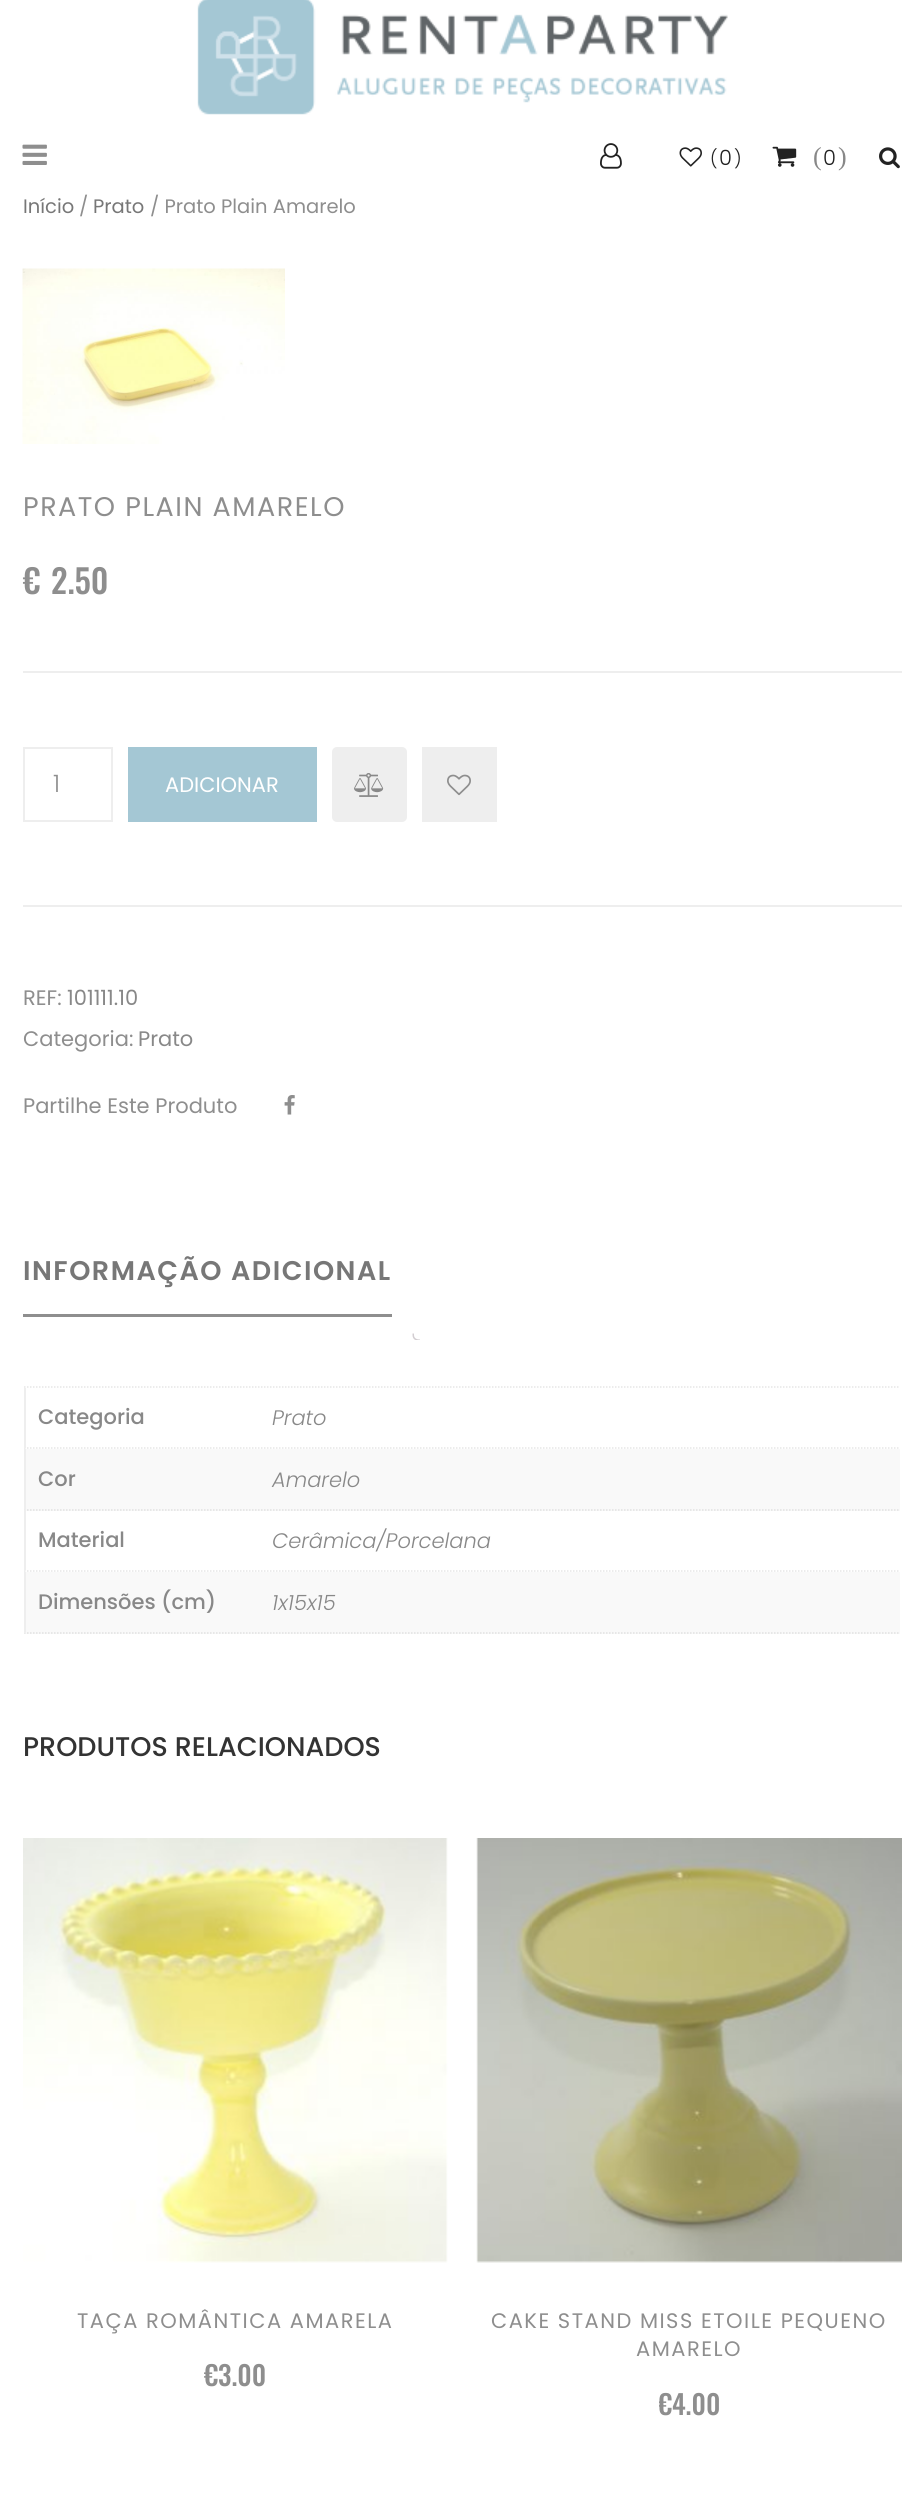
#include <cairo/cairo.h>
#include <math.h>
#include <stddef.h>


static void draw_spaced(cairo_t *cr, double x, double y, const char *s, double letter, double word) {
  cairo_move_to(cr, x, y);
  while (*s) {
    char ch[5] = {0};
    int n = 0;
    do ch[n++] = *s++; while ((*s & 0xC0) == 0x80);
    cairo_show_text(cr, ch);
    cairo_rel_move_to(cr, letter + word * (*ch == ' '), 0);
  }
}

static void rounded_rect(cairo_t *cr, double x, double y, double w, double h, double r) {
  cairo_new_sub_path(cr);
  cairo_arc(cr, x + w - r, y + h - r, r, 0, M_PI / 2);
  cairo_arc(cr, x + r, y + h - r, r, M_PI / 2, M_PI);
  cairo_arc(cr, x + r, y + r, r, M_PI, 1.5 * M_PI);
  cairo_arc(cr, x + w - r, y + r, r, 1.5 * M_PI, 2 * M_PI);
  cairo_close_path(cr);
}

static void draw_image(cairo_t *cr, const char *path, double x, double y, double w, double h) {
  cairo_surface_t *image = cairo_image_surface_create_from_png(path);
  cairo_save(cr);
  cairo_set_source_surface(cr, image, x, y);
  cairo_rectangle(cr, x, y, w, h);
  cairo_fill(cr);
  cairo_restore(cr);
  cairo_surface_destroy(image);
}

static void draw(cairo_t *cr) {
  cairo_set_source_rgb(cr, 1, 1, 1);
  cairo_paint(cr);
  draw_image(cr, "images/1.png", 197, 0, 531, 115);
  draw_image(cr, "images/2.png", 22, 144, 25, 21);
  draw_image(cr, "images/3.png", 600, 143, 22, 26);
  draw_image(cr, "images/4.png", 679, 147, 23, 20);
  draw_image(cr, "images/5.png", 772, 146, 25, 21);
  draw_image(cr, "images/6.png", 879, 147, 21, 22);
  draw_image(cr, "images/7.png", 22, 268, 263, 176);
  cairo_set_source_rgb(cr, 238 / 255.0, 238 / 255.0, 238 / 255.0);
  cairo_rectangle(cr, 23, 671, 879, 2);
  cairo_fill(cr);
  cairo_rectangle(cr, 24, 748, 88, 73);
  cairo_stroke(cr);
  cairo_set_source_rgb(cr, 164 / 255.0, 199 / 255.0, 212 / 255.0);
  cairo_rectangle(cr, 128, 747, 189, 75);
  cairo_fill(cr);
  cairo_set_source_rgb(cr, 238 / 255.0, 238 / 255.0, 238 / 255.0);
  rounded_rect(cr, 332, 747, 75, 75, 5);
  cairo_fill(cr);
  draw_image(cr, "images/8.png", 354, 773, 30, 24);
  cairo_rectangle(cr, 422, 747, 75, 75);
  cairo_fill(cr);
  draw_image(cr, "images/9.png", 447, 774, 24, 22);
  cairo_rectangle(cr, 23, 905, 879, 2);
  cairo_fill(cr);
  draw_image(cr, "images/10.png", 284, 1095, 11, 20);
  cairo_set_source_rgb(cr, 142 / 255.0, 142 / 255.0, 142 / 255.0);
  cairo_rectangle(cr, 23, 1314, 369, 3);
  cairo_fill(cr);
  cairo_save(cr);
  cairo_rectangle(cr, 23, 1242, 879, 98);
  cairo_clip(cr);
  cairo_set_source_rgb(cr, 211 / 255.0, 206 / 255.0, 210 / 255.0);
  cairo_set_fill_rule(cr, CAIRO_FILL_RULE_EVEN_ODD);
  cairo_new_path(cr);
  cairo_move_to(cr, 412.5, 1333.5);
  cairo_line_to(cr, 420, 1333.5);
  cairo_line_to(cr, 420, 1341);
  cairo_curve_to(cr, 416, 1341, 412.5, 1339.5, 412.5, 1335);
  cairo_close_path(cr);
  cairo_move_to(cr, 414, 1333.5);
  cairo_line_to(cr, 420, 1333.5);
  cairo_line_to(cr, 420, 1339.5);
  cairo_curve_to(cr, 417, 1339.5, 414, 1338.5, 414, 1335);
  cairo_close_path(cr);
  cairo_fill(cr);
  cairo_restore(cr);
  cairo_new_path(cr);
  cairo_move_to(cr, 24, 1387);
  cairo_line_to(cr, 900, 1387);
  cairo_set_source_rgb(cr, 230 / 255.0, 230 / 255.0, 230 / 255.0);
  cairo_set_line_width(cr, 1.5);
  cairo_set_dash(cr, (double[]){1.5, 1.5}, 2, 0);
  cairo_stroke(cr);
  cairo_new_path(cr);
  cairo_move_to(cr, 24, 1448);
  cairo_line_to(cr, 249, 1448);
  cairo_stroke(cr);
  cairo_set_source_rgb(cr, 238 / 255.0, 238 / 255.0, 238 / 255.0);
  cairo_new_path(cr);
  cairo_move_to(cr, 24, 1449);
  cairo_line_to(cr, 24, 1388);
  cairo_line_to(cr, 26, 1388);
  cairo_line_to(cr, 26, 1448);
  cairo_close_path(cr);
  cairo_fill(cr);
  cairo_new_path(cr);
  cairo_move_to(cr, 249, 1448);
  cairo_line_to(cr, 900, 1448);
  cairo_set_source_rgb(cr, 230 / 255.0, 230 / 255.0, 230 / 255.0);
  cairo_stroke(cr);
  cairo_set_source_rgb(cr, 249 / 255.0, 249 / 255.0, 249 / 255.0);
  cairo_rectangle(cr, 24, 1449, 876, 62);
  cairo_fill(cr);
  cairo_new_path(cr);
  cairo_move_to(cr, 24, 1510);
  cairo_line_to(cr, 249, 1510);
  cairo_set_source_rgb(cr, 224 / 255.0, 224 / 255.0, 224 / 255.0);
  cairo_stroke(cr);
  cairo_set_source_rgb(cr, 238 / 255.0, 238 / 255.0, 238 / 255.0);
  cairo_new_path(cr);
  cairo_move_to(cr, 24, 1510);
  cairo_line_to(cr, 24, 1449);
  cairo_line_to(cr, 26, 1449);
  cairo_line_to(cr, 26, 1509);
  cairo_close_path(cr);
  cairo_fill(cr);
  cairo_new_path(cr);
  cairo_move_to(cr, 249, 1510);
  cairo_line_to(cr, 900, 1510);
  cairo_set_source_rgb(cr, 224 / 255.0, 224 / 255.0, 224 / 255.0);
  cairo_stroke(cr);
  cairo_new_path(cr);
  cairo_move_to(cr, 24, 1571);
  cairo_line_to(cr, 249, 1571);
  cairo_set_source_rgb(cr, 230 / 255.0, 230 / 255.0, 230 / 255.0);
  cairo_stroke(cr);
  cairo_set_source_rgb(cr, 238 / 255.0, 238 / 255.0, 238 / 255.0);
  cairo_new_path(cr);
  cairo_move_to(cr, 24, 1572);
  cairo_line_to(cr, 24, 1510);
  cairo_line_to(cr, 26, 1510);
  cairo_line_to(cr, 26, 1570);
  cairo_close_path(cr);
  cairo_fill(cr);
  cairo_new_path(cr);
  cairo_move_to(cr, 249, 1571);
  cairo_line_to(cr, 900, 1571);
  cairo_set_source_rgb(cr, 230 / 255.0, 230 / 255.0, 230 / 255.0);
  cairo_stroke(cr);
  cairo_set_source_rgb(cr, 249 / 255.0, 249 / 255.0, 249 / 255.0);
  cairo_rectangle(cr, 24, 1572, 876, 62);
  cairo_fill(cr);
  cairo_new_path(cr);
  cairo_move_to(cr, 24, 1633);
  cairo_line_to(cr, 249, 1633);
  cairo_set_source_rgb(cr, 224 / 255.0, 224 / 255.0, 224 / 255.0);
  cairo_stroke(cr);
  cairo_set_source_rgb(cr, 238 / 255.0, 238 / 255.0, 238 / 255.0);
  cairo_new_path(cr);
  cairo_move_to(cr, 24, 1634);
  cairo_line_to(cr, 24, 1572);
  cairo_line_to(cr, 26, 1572);
  cairo_line_to(cr, 26, 1632);
  cairo_close_path(cr);
  cairo_fill(cr);
  cairo_new_path(cr);
  cairo_move_to(cr, 249, 1633);
  cairo_line_to(cr, 900, 1633);
  cairo_set_source_rgb(cr, 224 / 255.0, 224 / 255.0, 224 / 255.0);
  cairo_stroke(cr);
  draw_image(cr, "images/11.png", 23, 1838, 425, 425);
  draw_image(cr, "images/12.png", 476, 1838, 426, 425);
  cairo_select_font_face(cr, "Poppins Light", CAIRO_FONT_SLANT_NORMAL, CAIRO_FONT_WEIGHT_NORMAL);
  cairo_set_font_size(cr, 18);
  cairo_set_source_rgb(cr, 34 / 255.0, 34 / 255.0, 34 / 255.0);
  draw_spaced(cr, 710, 165, "(", 1.5, 0);
  cairo_set_font_size(cr, 21);
  draw_spaced(cr, 719, 165, "0", 1.5, 0);
  cairo_set_font_size(cr, 18);
  draw_spaced(cr, 734, 165, ")", 1.5, 0);
  cairo_select_font_face(cr, "Liberation Serif", CAIRO_FONT_SLANT_NORMAL, CAIRO_FONT_WEIGHT_NORMAL);
  cairo_set_font_size(cr, 26);
  cairo_set_source_rgb(cr, 136 / 255.0, 136 / 255.0, 136 / 255.0);
  draw_spaced(cr, 813, 165, "(", 1.5, 0);
  cairo_select_font_face(cr, "Poppins Light", CAIRO_FONT_SLANT_NORMAL, CAIRO_FONT_WEIGHT_NORMAL);
  cairo_set_font_size(cr, 21);
  cairo_set_source_rgb(cr, 34 / 255.0, 34 / 255.0, 34 / 255.0);
  draw_spaced(cr, 823, 165, "0", 1.5, 0);
  cairo_select_font_face(cr, "Liberation Serif", CAIRO_FONT_SLANT_NORMAL, CAIRO_FONT_WEIGHT_NORMAL);
  cairo_set_font_size(cr, 26);
  cairo_set_source_rgb(cr, 136 / 255.0, 136 / 255.0, 136 / 255.0);
  draw_spaced(cr, 838, 165, ")", 1.5, 0);
  cairo_select_font_face(cr, "Poppins", CAIRO_FONT_SLANT_NORMAL, CAIRO_FONT_WEIGHT_NORMAL);
  cairo_set_font_size(cr, 19.5);
  cairo_set_source_rgb(cr, 119 / 255.0, 119 / 255.0, 119 / 255.0);
  cairo_move_to(cr, 23, 213);
  cairo_show_text(cr, "Início");
  cairo_set_source_rgb(cr, 142 / 255.0, 142 / 255.0, 142 / 255.0);
  cairo_move_to(cr, 79, 213);
  cairo_show_text(cr, "/");
  cairo_set_source_rgb(cr, 119 / 255.0, 119 / 255.0, 119 / 255.0);
  cairo_move_to(cr, 93, 213);
  cairo_show_text(cr, "Prato");
  cairo_set_source_rgb(cr, 142 / 255.0, 142 / 255.0, 142 / 255.0);
  cairo_move_to(cr, 150, 213);
  cairo_show_text(cr, "/ Prato Plain Amarelo");
  cairo_set_font_size(cr, 27);
  draw_spaced(cr, 23, 516, "PRATO PLAIN AMARELO", 1.5, 0);
  cairo_select_font_face(cr, "Oswald Medium", CAIRO_FONT_SLANT_NORMAL, CAIRO_FONT_WEIGHT_NORMAL);
  cairo_set_font_size(cr, 33);
  cairo_move_to(cr, 23, 594);
  cairo_show_text(cr, "€");
  cairo_move_to(cr, 51, 594);
  cairo_show_text(cr, "2.50");
  cairo_select_font_face(cr, "Poppins Light", CAIRO_FONT_SLANT_NORMAL, CAIRO_FONT_WEIGHT_NORMAL);
  cairo_set_font_size(cr, 24);
  cairo_move_to(cr, 53, 792);
  cairo_show_text(cr, "1");
  cairo_select_font_face(cr, "Poppins", CAIRO_FONT_SLANT_NORMAL, CAIRO_FONT_WEIGHT_NORMAL);
  cairo_set_font_size(cr, 21);
  cairo_set_source_rgb(cr, 1, 1, 1);
  cairo_move_to(cr, 165, 792);
  cairo_show_text(cr, "ADICIONAR");
  cairo_set_source_rgb(cr, 142 / 255.0, 142 / 255.0, 142 / 255.0);
  cairo_move_to(cr, 23, 1005);
  cairo_show_text(cr, "REF:");
  cairo_set_source_rgb(cr, 136 / 255.0, 136 / 255.0, 136 / 255.0);
  cairo_move_to(cr, 67, 1005);
  cairo_show_text(cr, "101111.10");
  cairo_set_source_rgb(cr, 142 / 255.0, 142 / 255.0, 142 / 255.0);
  cairo_move_to(cr, 23, 1046);
  cairo_show_text(cr, "Categoria:");
  cairo_set_source_rgb(cr, 136 / 255.0, 136 / 255.0, 136 / 255.0);
  cairo_move_to(cr, 138, 1046);
  cairo_show_text(cr, "Prato");
  cairo_set_source_rgb(cr, 142 / 255.0, 142 / 255.0, 142 / 255.0);
  cairo_move_to(cr, 23, 1113);
  cairo_show_text(cr, "Partilhe Este Produto");
  cairo_select_font_face(cr, "Poppins SemiBold", CAIRO_FONT_SLANT_NORMAL, CAIRO_FONT_WEIGHT_NORMAL);
  cairo_set_font_size(cr, 27);
  cairo_set_source_rgb(cr, 119 / 255.0, 119 / 255.0, 119 / 255.0);
  draw_spaced(cr, 23, 1280, "INFORMAÇÃO ADICIONAL", 1.5, 0);
  cairo_select_font_face(cr, "Poppins Medium", CAIRO_FONT_SLANT_NORMAL, CAIRO_FONT_WEIGHT_NORMAL);
  cairo_set_font_size(cr, 21);
  cairo_set_source_rgb(cr, 136 / 255.0, 136 / 255.0, 136 / 255.0);
  cairo_move_to(cr, 38, 1424);
  cairo_show_text(cr, "Categoria");
  cairo_select_font_face(cr, "Poppins Light", CAIRO_FONT_SLANT_ITALIC, CAIRO_FONT_WEIGHT_NORMAL);
  cairo_move_to(cr, 272, 1425);
  cairo_show_text(cr, "Prato");
  cairo_select_font_face(cr, "Poppins Medium", CAIRO_FONT_SLANT_NORMAL, CAIRO_FONT_WEIGHT_NORMAL);
  cairo_move_to(cr, 38, 1486);
  cairo_show_text(cr, "Cor");
  cairo_select_font_face(cr, "Poppins Light", CAIRO_FONT_SLANT_ITALIC, CAIRO_FONT_WEIGHT_NORMAL);
  cairo_move_to(cr, 272, 1487);
  cairo_show_text(cr, "Amarelo");
  cairo_select_font_face(cr, "Poppins Medium", CAIRO_FONT_SLANT_NORMAL, CAIRO_FONT_WEIGHT_NORMAL);
  cairo_move_to(cr, 38, 1547);
  cairo_show_text(cr, "Material");
  cairo_select_font_face(cr, "Poppins Light", CAIRO_FONT_SLANT_ITALIC, CAIRO_FONT_WEIGHT_NORMAL);
  cairo_move_to(cr, 272, 1548);
  cairo_show_text(cr, "Cerâmica/Porcelana");
  cairo_select_font_face(cr, "Poppins Medium", CAIRO_FONT_SLANT_NORMAL, CAIRO_FONT_WEIGHT_NORMAL);
  cairo_move_to(cr, 38, 1609);
  cairo_show_text(cr, "Dimensões (cm)");
  cairo_select_font_face(cr, "Poppins Light", CAIRO_FONT_SLANT_ITALIC, CAIRO_FONT_WEIGHT_NORMAL);
  cairo_move_to(cr, 272, 1610);
  cairo_show_text(cr, "1x15x15");
  cairo_select_font_face(cr, "Poppins Medium", CAIRO_FONT_SLANT_NORMAL, CAIRO_FONT_WEIGHT_NORMAL);
  cairo_set_font_size(cr, 27);
  cairo_set_source_rgb(cr, 51 / 255.0, 51 / 255.0, 51 / 255.0);
  cairo_move_to(cr, 23, 1756);
  cairo_show_text(cr, "PRODUTOS RELACIONADOS");
  cairo_select_font_face(cr, "Poppins", CAIRO_FONT_SLANT_NORMAL, CAIRO_FONT_WEIGHT_NORMAL);
  cairo_set_font_size(cr, 21);
  cairo_set_source_rgb(cr, 142 / 255.0, 142 / 255.0, 142 / 255.0);
  draw_spaced(cr, 77, 2328, "TAÇA ROMÂNTICA AMARELA", 1.5, 0);
  cairo_save(cr);
  cairo_rectangle(cr, 204, 2358, 62, 36);
  cairo_clip(cr);
  cairo_select_font_face(cr, "Oswald Medium", CAIRO_FONT_SLANT_NORMAL, CAIRO_FONT_WEIGHT_NORMAL);
  cairo_set_font_size(cr, 27);
  cairo_move_to(cr, 204, 2386);
  cairo_show_text(cr, "€");
  cairo_restore(cr);
  cairo_select_font_face(cr, "Oswald Medium", CAIRO_FONT_SLANT_NORMAL, CAIRO_FONT_WEIGHT_NORMAL);
  cairo_set_font_size(cr, 27);
  cairo_move_to(cr, 218, 2386);
  cairo_show_text(cr, "3.00");
  cairo_select_font_face(cr, "Poppins", CAIRO_FONT_SLANT_NORMAL, CAIRO_FONT_WEIGHT_NORMAL);
  cairo_set_font_size(cr, 21);
  draw_spaced(cr, 491, 2328, "CAKE STAND MISS ETOILE PEQUENO", 1.5, 0);
  draw_spaced(cr, 636, 2356, "AMARELO", 1.5, 0);
  cairo_save(cr);
  cairo_rectangle(cr, 659, 2387, 61, 36);
  cairo_clip(cr);
  cairo_select_font_face(cr, "Oswald Medium", CAIRO_FONT_SLANT_NORMAL, CAIRO_FONT_WEIGHT_NORMAL);
  cairo_set_font_size(cr, 27);
  cairo_move_to(cr, 658, 2415);
  cairo_show_text(cr, "€");
  cairo_restore(cr);
  cairo_select_font_face(cr, "Oswald Medium", CAIRO_FONT_SLANT_NORMAL, CAIRO_FONT_WEIGHT_NORMAL);
  cairo_set_font_size(cr, 27);
  cairo_move_to(cr, 672, 2415);
  cairo_show_text(cr, "4.00");
}

int main(void) {
  cairo_surface_t *surface = cairo_image_surface_create(CAIRO_FORMAT_RGB24, 923, 2516);
  cairo_t *cr = cairo_create(surface);
  cairo_font_options_t *options = cairo_font_options_create();
  cairo_font_options_set_hint_metrics(options, CAIRO_HINT_METRICS_OFF);
  cairo_font_options_set_hint_style(options, CAIRO_HINT_STYLE_NONE);
  cairo_set_font_options(cr, options);
  cairo_set_miter_limit(cr, 4);
  draw(cr);
  cairo_surface_write_to_png(surface, "out.png");
  cairo_font_options_destroy(options);
  cairo_destroy(cr);
  cairo_surface_destroy(surface);
  return 0;
}
